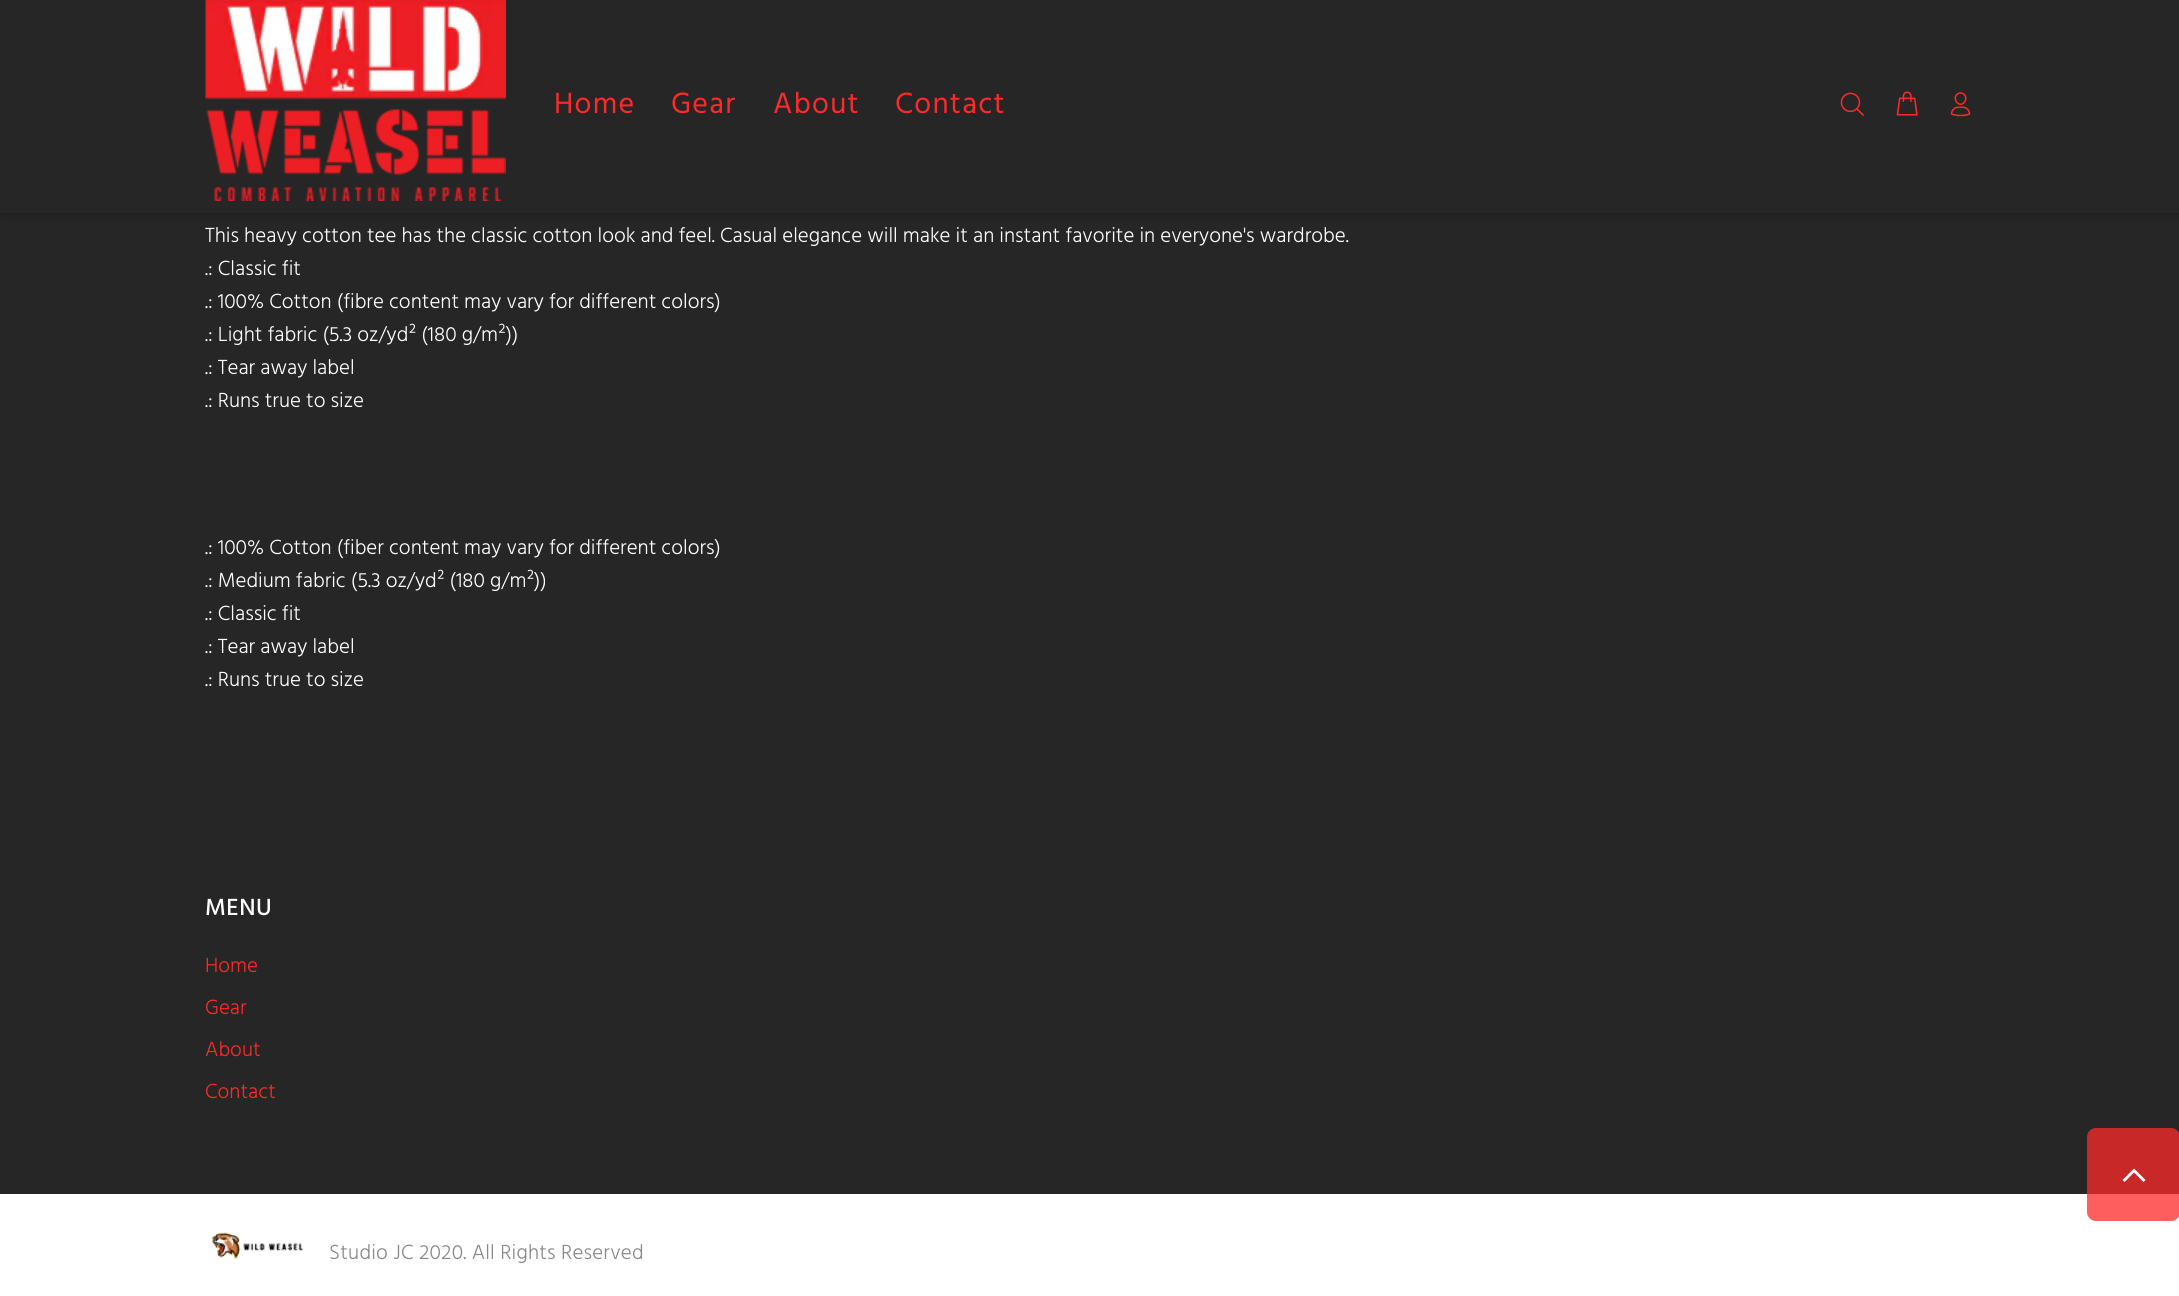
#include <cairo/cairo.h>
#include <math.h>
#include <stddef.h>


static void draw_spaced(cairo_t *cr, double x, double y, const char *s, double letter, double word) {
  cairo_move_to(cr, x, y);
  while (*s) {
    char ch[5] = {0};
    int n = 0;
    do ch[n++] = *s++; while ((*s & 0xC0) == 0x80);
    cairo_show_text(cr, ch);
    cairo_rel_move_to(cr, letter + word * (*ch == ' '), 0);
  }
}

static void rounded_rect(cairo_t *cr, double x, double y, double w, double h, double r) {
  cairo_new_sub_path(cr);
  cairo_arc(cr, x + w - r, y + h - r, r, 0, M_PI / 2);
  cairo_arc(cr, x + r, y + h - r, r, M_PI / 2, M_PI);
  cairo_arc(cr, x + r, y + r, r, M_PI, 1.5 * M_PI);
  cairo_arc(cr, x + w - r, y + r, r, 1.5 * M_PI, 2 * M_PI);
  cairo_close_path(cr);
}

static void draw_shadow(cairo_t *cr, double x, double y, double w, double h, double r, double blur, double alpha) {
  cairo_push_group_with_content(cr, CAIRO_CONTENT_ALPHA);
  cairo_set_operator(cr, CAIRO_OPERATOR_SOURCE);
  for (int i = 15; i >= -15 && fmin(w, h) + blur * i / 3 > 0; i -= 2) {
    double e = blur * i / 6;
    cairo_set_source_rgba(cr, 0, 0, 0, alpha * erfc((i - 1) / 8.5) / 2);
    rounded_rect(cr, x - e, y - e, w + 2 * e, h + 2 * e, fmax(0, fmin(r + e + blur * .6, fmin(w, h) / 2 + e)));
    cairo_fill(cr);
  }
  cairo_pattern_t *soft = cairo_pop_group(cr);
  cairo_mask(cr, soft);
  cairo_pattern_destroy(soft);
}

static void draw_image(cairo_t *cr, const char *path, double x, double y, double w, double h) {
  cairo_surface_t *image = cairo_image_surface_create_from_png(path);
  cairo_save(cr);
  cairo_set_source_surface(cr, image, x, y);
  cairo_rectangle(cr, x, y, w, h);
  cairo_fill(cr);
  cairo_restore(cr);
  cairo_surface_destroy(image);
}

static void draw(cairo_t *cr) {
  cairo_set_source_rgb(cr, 38 / 255.0, 38 / 255.0, 38 / 255.0);
  cairo_paint(cr);
  cairo_set_source_rgb(cr, 0, 0, 0);
  draw_shadow(cr, 0, 0, 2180, 213, 0, 6, 0.3);
  cairo_set_source_rgb(cr, 38 / 255.0, 38 / 255.0, 38 / 255.0);
  cairo_rectangle(cr, 0, 0, 2179, 213);
  cairo_fill(cr);
  draw_image(cr, "images/1.png", 205, 0, 301, 201);
  draw_image(cr, "images/2.png", 1840, 92, 24, 24);
  draw_image(cr, "images/3.png", 1896, 91, 22, 25);
  draw_image(cr, "images/4.png", 1950, 92, 21, 25);
  cairo_set_source_rgb(cr, 1, 1, 1);
  cairo_rectangle(cr, 0, 1194, 2179, 102);
  cairo_fill(cr);
  draw_image(cr, "images/5.png", 212, 1232, 92, 28);
  cairo_set_source_rgba(cr, 1, 41 / 255.0, 41 / 255.0, 0.75);
  rounded_rect(cr, 2087, 1128, 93, 93, 9);
  cairo_fill(cr);
  cairo_set_source_rgb(cr, 1, 1, 1);
  cairo_new_path(cr);
  cairo_move_to(cr, 2143.5, 1182);
  cairo_line_to(cr, 2134, 1172.5);
  cairo_line_to(cr, 2124.5, 1182);
  cairo_line_to(cr, 2122.5, 1180);
  cairo_line_to(cr, 2134, 1168.5);
  cairo_line_to(cr, 2145.5, 1180);
  cairo_close_path(cr);
  cairo_fill(cr);
  cairo_select_font_face(cr, "Hind", CAIRO_FONT_SLANT_NORMAL, CAIRO_FONT_WEIGHT_NORMAL);
  cairo_set_font_size(cr, 30);
  cairo_set_source_rgb(cr, 1, 41 / 255.0, 41 / 255.0);
  draw_spaced(cr, 554, 113, "Home", 1.25, 0);
  draw_spaced(cr, 671, 113, "Gear", 1.25, 0);
  draw_spaced(cr, 773, 113, "About", 1.25, 0);
  draw_spaced(cr, 895, 113, "Contact", 1.25, 0);
  cairo_select_font_face(cr, "Hind Light", CAIRO_FONT_SLANT_NORMAL, CAIRO_FONT_WEIGHT_NORMAL);
  cairo_set_font_size(cr, 21);
  cairo_set_source_rgb(cr, 1, 1, 1);
  cairo_move_to(cr, 205, 242);
  cairo_show_text(cr, "This heavy cotton tee has the classic cotton look and feel. Casual elegance will make it an instant favorite in everyone's wardrobe.");
  cairo_move_to(cr, 205, 275);
  cairo_show_text(cr, ".: Classic fit");
  cairo_move_to(cr, 205, 308);
  cairo_show_text(cr, ".: 100% Cotton (fibre content may vary for different colors)");
  cairo_move_to(cr, 205, 341);
  cairo_show_text(cr, ".: Light fabric (5.3 oz/yd² (180 g/m²))");
  cairo_move_to(cr, 205, 374);
  cairo_show_text(cr, ".: Tear away label");
  cairo_move_to(cr, 205, 407);
  cairo_show_text(cr, ".: Runs true to size");
  cairo_move_to(cr, 205, 554);
  cairo_show_text(cr, ".: 100% Cotton (fiber content may vary for different colors)");
  cairo_move_to(cr, 205, 587);
  cairo_show_text(cr, ".: Medium fabric (5.3 oz/yd² (180 g/m²))");
  cairo_move_to(cr, 205, 620);
  cairo_show_text(cr, ".: Classic fit");
  cairo_move_to(cr, 205, 653);
  cairo_show_text(cr, ".: Tear away label");
  cairo_move_to(cr, 205, 686);
  cairo_show_text(cr, ".: Runs true to size");
  cairo_select_font_face(cr, "Hind Medium", CAIRO_FONT_SLANT_NORMAL, CAIRO_FONT_WEIGHT_NORMAL);
  cairo_set_font_size(cr, 24);
  draw_spaced(cr, 205, 915, "MENU", 0.5, 0);
  cairo_select_font_face(cr, "Hind Light", CAIRO_FONT_SLANT_NORMAL, CAIRO_FONT_WEIGHT_NORMAL);
  cairo_set_font_size(cr, 21);
  cairo_set_source_rgb(cr, 1, 41 / 255.0, 41 / 255.0);
  cairo_move_to(cr, 205, 972);
  cairo_show_text(cr, "Home");
  cairo_move_to(cr, 205, 1014);
  cairo_show_text(cr, "Gear");
  cairo_move_to(cr, 205, 1056);
  cairo_show_text(cr, "About");
  cairo_move_to(cr, 205, 1098);
  cairo_show_text(cr, "Contact");
  cairo_set_source_rgb(cr, 136 / 255.0, 136 / 255.0, 136 / 255.0);
  draw_spaced(cr, 329, 1259, "Studio JC 2020. All Rights Reserved", 0.2, 0);
}

int main(void) {
  cairo_surface_t *surface = cairo_image_surface_create(CAIRO_FORMAT_RGB24, 2179, 1296);
  cairo_t *cr = cairo_create(surface);
  cairo_font_options_t *options = cairo_font_options_create();
  cairo_font_options_set_hint_metrics(options, CAIRO_HINT_METRICS_OFF);
  cairo_font_options_set_hint_style(options, CAIRO_HINT_STYLE_NONE);
  cairo_set_font_options(cr, options);
  cairo_set_miter_limit(cr, 4);
  draw(cr);
  cairo_surface_write_to_png(surface, "out.png");
  cairo_font_options_destroy(options);
  cairo_destroy(cr);
  cairo_surface_destroy(surface);
  return 0;
}
